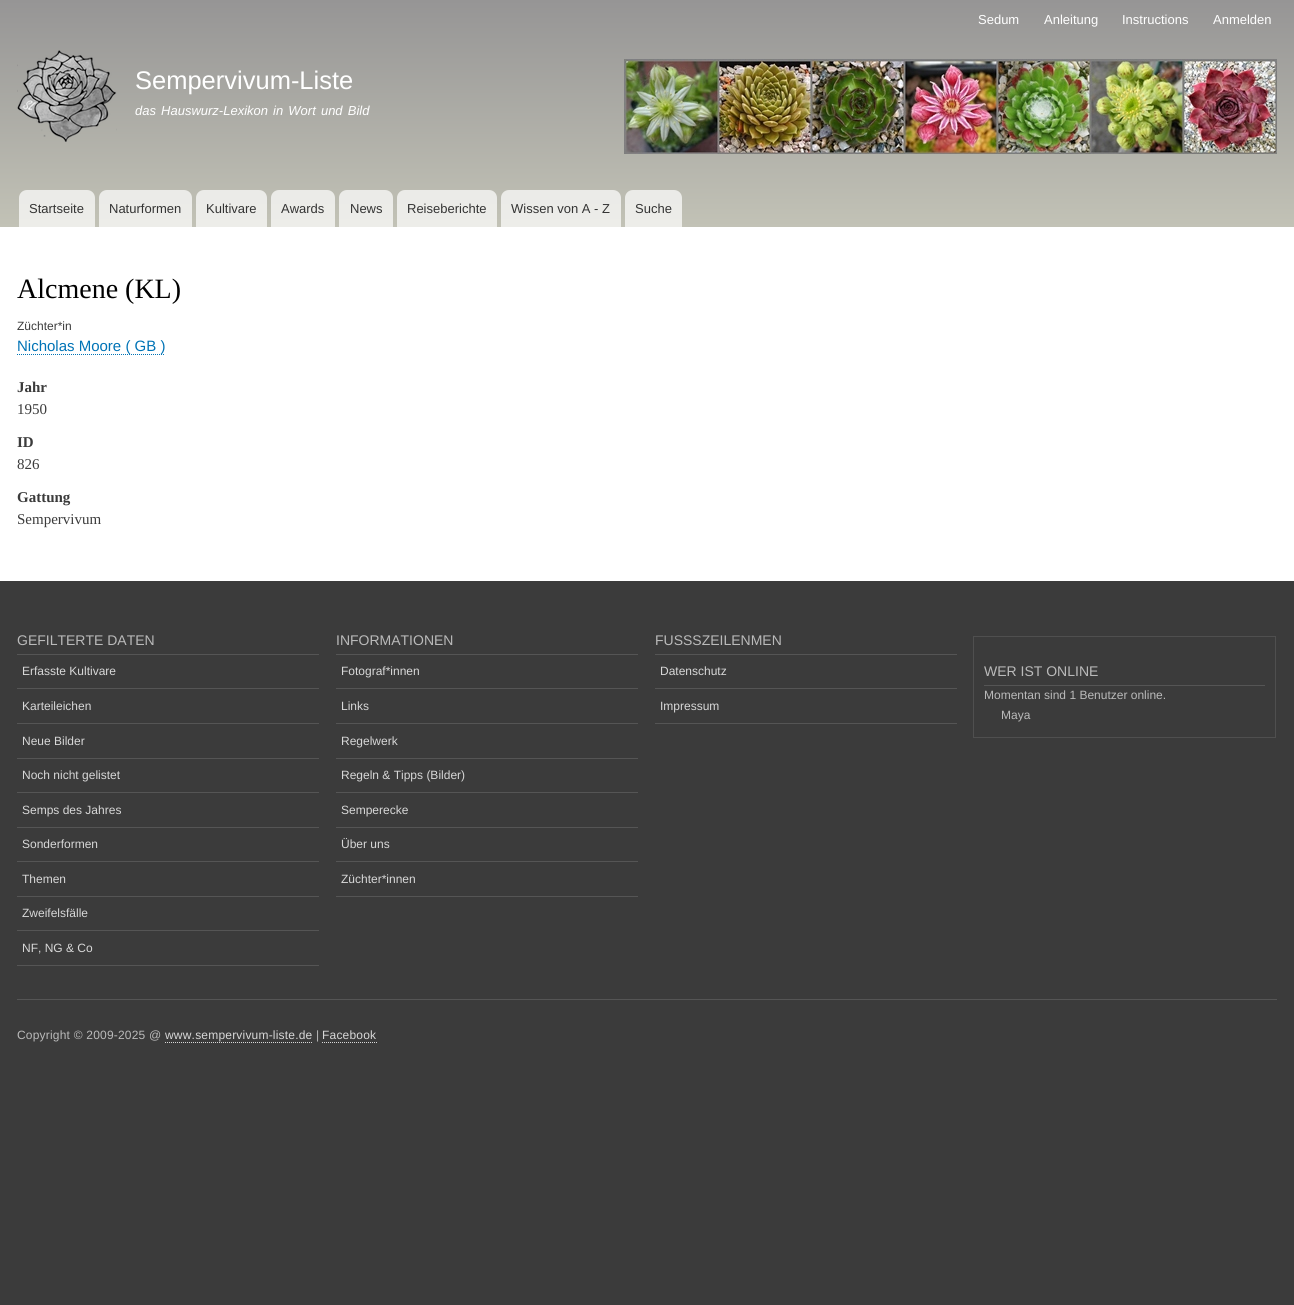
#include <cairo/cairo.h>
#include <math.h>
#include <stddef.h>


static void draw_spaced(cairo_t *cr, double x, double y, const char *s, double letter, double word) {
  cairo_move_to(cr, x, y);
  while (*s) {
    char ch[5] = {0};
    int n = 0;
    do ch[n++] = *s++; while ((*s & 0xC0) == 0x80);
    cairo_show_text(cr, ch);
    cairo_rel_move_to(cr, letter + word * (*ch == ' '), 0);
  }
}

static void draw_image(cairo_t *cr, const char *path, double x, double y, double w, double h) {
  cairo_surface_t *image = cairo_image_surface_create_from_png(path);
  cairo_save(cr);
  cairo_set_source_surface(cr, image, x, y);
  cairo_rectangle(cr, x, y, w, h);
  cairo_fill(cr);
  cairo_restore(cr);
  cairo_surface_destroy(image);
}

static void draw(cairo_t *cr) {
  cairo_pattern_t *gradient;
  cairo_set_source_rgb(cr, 59 / 255.0, 59 / 255.0, 59 / 255.0);
  cairo_paint(cr);
  cairo_set_source_rgb(cr, 1, 1, 1);
  cairo_rectangle(cr, 0, 227, 1294, 354);
  cairo_fill(cr);
  gradient = cairo_pattern_create_linear(647, 0, 647, 227);
  cairo_pattern_add_color_stop_rgba(gradient, 0, 150 / 255.0, 149 / 255.0, 149 / 255.0, 1);
  cairo_pattern_add_color_stop_rgba(gradient, 1, 194 / 255.0, 194 / 255.0, 182 / 255.0, 1);
  cairo_set_source(cr, gradient);
  cairo_pattern_destroy(gradient);
  cairo_rectangle(cr, 0, 0, 1294, 227);
  cairo_fill(cr);
  draw_image(cr, "images/1.png", 17, 50, 100, 92);
  draw_image(cr, "images/2.png", 624, 59, 653, 95);
  cairo_set_source_rgba(cr, 1, 1, 1, 0.7);
  cairo_new_path(cr);
  cairo_move_to(cr, 27, 190);
  cairo_line_to(cr, 87, 190);
  cairo_curve_to(cr, 91.5, 190, 95, 193.5, 95, 198);
  cairo_line_to(cr, 95, 227);
  cairo_line_to(cr, 19, 227);
  cairo_line_to(cr, 19, 198);
  cairo_curve_to(cr, 19, 193.5, 22.5, 190, 27, 190);
  cairo_close_path(cr);
  cairo_fill(cr);
  cairo_new_path(cr);
  cairo_move_to(cr, 107, 190);
  cairo_line_to(cr, 184, 190);
  cairo_curve_to(cr, 188.5, 190, 192, 193.5, 192, 198);
  cairo_line_to(cr, 192, 227);
  cairo_line_to(cr, 99, 227);
  cairo_line_to(cr, 99, 198);
  cairo_curve_to(cr, 99, 193.5, 102.5, 190, 107, 190);
  cairo_close_path(cr);
  cairo_fill(cr);
  cairo_new_path(cr);
  cairo_move_to(cr, 204, 190);
  cairo_line_to(cr, 259, 190);
  cairo_curve_to(cr, 263.5, 190, 267, 193.5, 267, 198);
  cairo_line_to(cr, 267, 227);
  cairo_line_to(cr, 196, 227);
  cairo_line_to(cr, 196, 198);
  cairo_curve_to(cr, 196, 193.5, 199.5, 190, 204, 190);
  cairo_close_path(cr);
  cairo_fill(cr);
  cairo_new_path(cr);
  cairo_move_to(cr, 279, 190);
  cairo_line_to(cr, 327, 190);
  cairo_curve_to(cr, 331.5, 190, 335, 193.5, 335, 198);
  cairo_line_to(cr, 335, 227);
  cairo_line_to(cr, 271, 227);
  cairo_line_to(cr, 271, 198);
  cairo_curve_to(cr, 271, 193.5, 274.5, 190, 279, 190);
  cairo_close_path(cr);
  cairo_fill(cr);
  cairo_new_path(cr);
  cairo_move_to(cr, 347, 190);
  cairo_line_to(cr, 385, 190);
  cairo_curve_to(cr, 389.5, 190, 393, 193.5, 393, 198);
  cairo_line_to(cr, 393, 227);
  cairo_line_to(cr, 339, 227);
  cairo_line_to(cr, 339, 198);
  cairo_curve_to(cr, 339, 193.5, 342.5, 190, 347, 190);
  cairo_close_path(cr);
  cairo_fill(cr);
  cairo_new_path(cr);
  cairo_move_to(cr, 405, 190);
  cairo_line_to(cr, 489, 190);
  cairo_curve_to(cr, 493.5, 190, 497, 193.5, 497, 198);
  cairo_line_to(cr, 497, 227);
  cairo_line_to(cr, 397, 227);
  cairo_line_to(cr, 397, 198);
  cairo_curve_to(cr, 397, 193.5, 400.5, 190, 405, 190);
  cairo_close_path(cr);
  cairo_fill(cr);
  cairo_new_path(cr);
  cairo_move_to(cr, 509, 190);
  cairo_line_to(cr, 613, 190);
  cairo_curve_to(cr, 617.5, 190, 621, 193.5, 621, 198);
  cairo_line_to(cr, 621, 227);
  cairo_line_to(cr, 501, 227);
  cairo_line_to(cr, 501, 198);
  cairo_curve_to(cr, 501, 193.5, 504.5, 190, 509, 190);
  cairo_close_path(cr);
  cairo_fill(cr);
  cairo_new_path(cr);
  cairo_move_to(cr, 633, 190);
  cairo_line_to(cr, 674, 190);
  cairo_curve_to(cr, 678.5, 190, 682, 193.5, 682, 198);
  cairo_line_to(cr, 682, 227);
  cairo_line_to(cr, 625, 227);
  cairo_line_to(cr, 625, 198);
  cairo_curve_to(cr, 625, 193.5, 628.5, 190, 633, 190);
  cairo_close_path(cr);
  cairo_fill(cr);
  cairo_new_path(cr);
  cairo_move_to(cr, 17, 354.5);
  cairo_line_to(cr, 165, 354.5);
  cairo_set_source_rgb(cr, 0, 115 / 255.0, 182 / 255.0);
  cairo_set_line_width(cr, 1);
  cairo_set_dash(cr, (double[]){1, 1}, 2, 0);
  cairo_stroke(cr);
  cairo_set_source_rgb(cr, 85 / 255.0, 85 / 255.0, 85 / 255.0);
  cairo_rectangle(cr, 17, 654, 302, 1);
  cairo_fill(cr);
  cairo_rectangle(cr, 17, 688, 302, 1);
  cairo_fill(cr);
  cairo_rectangle(cr, 17, 723, 302, 1);
  cairo_fill(cr);
  cairo_rectangle(cr, 17, 758, 302, 1);
  cairo_fill(cr);
  cairo_rectangle(cr, 17, 792, 302, 1);
  cairo_fill(cr);
  cairo_rectangle(cr, 17, 827, 302, 1);
  cairo_fill(cr);
  cairo_rectangle(cr, 17, 861, 302, 1);
  cairo_fill(cr);
  cairo_rectangle(cr, 17, 896, 302, 1);
  cairo_fill(cr);
  cairo_rectangle(cr, 17, 930, 302, 1);
  cairo_fill(cr);
  cairo_rectangle(cr, 17, 965, 302, 1);
  cairo_fill(cr);
  cairo_rectangle(cr, 336, 654, 302, 1);
  cairo_fill(cr);
  cairo_rectangle(cr, 336, 688, 302, 1);
  cairo_fill(cr);
  cairo_rectangle(cr, 336, 723, 302, 1);
  cairo_fill(cr);
  cairo_rectangle(cr, 336, 758, 302, 1);
  cairo_fill(cr);
  cairo_rectangle(cr, 336, 792, 302, 1);
  cairo_fill(cr);
  cairo_rectangle(cr, 336, 827, 302, 1);
  cairo_fill(cr);
  cairo_rectangle(cr, 336, 861, 302, 1);
  cairo_fill(cr);
  cairo_rectangle(cr, 336, 896, 302, 1);
  cairo_fill(cr);
  cairo_rectangle(cr, 655, 654, 302, 1);
  cairo_fill(cr);
  cairo_rectangle(cr, 655, 688, 302, 1);
  cairo_fill(cr);
  cairo_rectangle(cr, 655, 723, 302, 1);
  cairo_fill(cr);
  cairo_rectangle(cr, 973.5, 636.5, 302, 101);
  cairo_set_source_rgb(cr, 79 / 255.0, 79 / 255.0, 79 / 255.0);
  cairo_set_dash(cr, NULL, 0, 0);
  cairo_stroke(cr);
  cairo_set_source_rgb(cr, 85 / 255.0, 85 / 255.0, 85 / 255.0);
  cairo_rectangle(cr, 984, 685, 281, 1);
  cairo_fill(cr);
  cairo_rectangle(cr, 17, 999, 1260, 1);
  cairo_fill(cr);
  cairo_new_path(cr);
  cairo_move_to(cr, 165, 1042.5);
  cairo_line_to(cr, 312, 1042.5);
  cairo_set_source_rgb(cr, 216 / 255.0, 216 / 255.0, 216 / 255.0);
  cairo_set_dash(cr, (double[]){1, 1}, 2, 0);
  cairo_stroke(cr);
  cairo_new_path(cr);
  cairo_move_to(cr, 322, 1042.5);
  cairo_line_to(cr, 377, 1042.5);
  cairo_stroke(cr);
  cairo_select_font_face(cr, "Liberation Sans", CAIRO_FONT_SLANT_NORMAL, CAIRO_FONT_WEIGHT_NORMAL);
  cairo_set_font_size(cr, 13);
  cairo_set_source_rgb(cr, 1, 1, 1);
  cairo_move_to(cr, 978, 24);
  cairo_show_text(cr, "Sedum");
  cairo_move_to(cr, 1044, 24);
  cairo_show_text(cr, "Anleitung");
  cairo_move_to(cr, 1122, 24);
  cairo_show_text(cr, "Instructions");
  cairo_move_to(cr, 1213, 24);
  cairo_show_text(cr, "Anmelden");
  cairo_set_font_size(cr, 25.5);
  cairo_move_to(cr, 135, 89);
  cairo_show_text(cr, "Sempervivum-Liste");
  cairo_select_font_face(cr, "Liberation Sans", CAIRO_FONT_SLANT_ITALIC, CAIRO_FONT_WEIGHT_NORMAL);
  cairo_set_font_size(cr, 13);
  draw_spaced(cr, 135, 115, "das Hauswurz-Lexikon in Wort und Bild", 0, 1.5);
  cairo_select_font_face(cr, "Liberation Sans", CAIRO_FONT_SLANT_NORMAL, CAIRO_FONT_WEIGHT_NORMAL);
  cairo_set_source_rgb(cr, 51 / 255.0, 51 / 255.0, 51 / 255.0);
  cairo_move_to(cr, 29, 213);
  cairo_show_text(cr, "Startseite");
  cairo_move_to(cr, 109, 213);
  cairo_show_text(cr, "Naturformen");
  cairo_move_to(cr, 206, 213);
  cairo_show_text(cr, "Kultivare");
  cairo_move_to(cr, 281, 213);
  cairo_show_text(cr, "Awards");
  cairo_move_to(cr, 350, 213);
  cairo_show_text(cr, "News");
  cairo_move_to(cr, 407, 213);
  cairo_show_text(cr, "Reiseberichte");
  cairo_move_to(cr, 511, 213);
  cairo_show_text(cr, "Wissen von A - Z");
  cairo_move_to(cr, 635, 213);
  cairo_show_text(cr, "Suche");
  cairo_select_font_face(cr, "Liberation Serif", CAIRO_FONT_SLANT_NORMAL, CAIRO_FONT_WEIGHT_NORMAL);
  cairo_set_font_size(cr, 28);
  cairo_set_source_rgb(cr, 0, 0, 0);
  cairo_move_to(cr, 17, 298);
  cairo_show_text(cr, "Alcmene (KL)");
  cairo_select_font_face(cr, "Liberation Sans", CAIRO_FONT_SLANT_NORMAL, CAIRO_FONT_WEIGHT_NORMAL);
  cairo_set_font_size(cr, 12);
  cairo_set_source_rgb(cr, 59 / 255.0, 59 / 255.0, 59 / 255.0);
  cairo_move_to(cr, 17, 330);
  cairo_show_text(cr, "Züchter*in");
  cairo_set_font_size(cr, 15);
  cairo_set_source_rgb(cr, 0, 115 / 255.0, 182 / 255.0);
  cairo_move_to(cr, 17, 351);
  cairo_show_text(cr, "Nicholas Moore ( GB )");
  cairo_select_font_face(cr, "Liberation Serif", CAIRO_FONT_SLANT_NORMAL, CAIRO_FONT_WEIGHT_BOLD);
  cairo_set_source_rgb(cr, 59 / 255.0, 59 / 255.0, 59 / 255.0);
  cairo_move_to(cr, 17, 392);
  cairo_show_text(cr, "Jahr");
  cairo_select_font_face(cr, "Liberation Serif", CAIRO_FONT_SLANT_NORMAL, CAIRO_FONT_WEIGHT_NORMAL);
  cairo_move_to(cr, 17, 414);
  cairo_show_text(cr, "1950");
  cairo_select_font_face(cr, "Liberation Serif", CAIRO_FONT_SLANT_NORMAL, CAIRO_FONT_WEIGHT_BOLD);
  cairo_move_to(cr, 17, 447);
  cairo_show_text(cr, "ID");
  cairo_select_font_face(cr, "Liberation Serif", CAIRO_FONT_SLANT_NORMAL, CAIRO_FONT_WEIGHT_NORMAL);
  cairo_move_to(cr, 17, 469);
  cairo_show_text(cr, "826");
  cairo_select_font_face(cr, "Liberation Serif", CAIRO_FONT_SLANT_NORMAL, CAIRO_FONT_WEIGHT_BOLD);
  cairo_move_to(cr, 17, 502);
  cairo_show_text(cr, "Gattung");
  cairo_select_font_face(cr, "Liberation Serif", CAIRO_FONT_SLANT_NORMAL, CAIRO_FONT_WEIGHT_NORMAL);
  cairo_move_to(cr, 17, 524);
  cairo_show_text(cr, "Sempervivum");
  cairo_select_font_face(cr, "Liberation Sans", CAIRO_FONT_SLANT_NORMAL, CAIRO_FONT_WEIGHT_NORMAL);
  cairo_set_font_size(cr, 14);
  cairo_set_source_rgb(cr, 186 / 255.0, 186 / 255.0, 186 / 255.0);
  cairo_move_to(cr, 17, 645);
  cairo_show_text(cr, "GEFILTERTE DATEN");
  cairo_set_font_size(cr, 12);
  cairo_set_source_rgb(cr, 216 / 255.0, 216 / 255.0, 216 / 255.0);
  cairo_move_to(cr, 22, 675);
  cairo_show_text(cr, "Erfasste Kultivare");
  cairo_move_to(cr, 22, 710);
  cairo_show_text(cr, "Karteileichen");
  cairo_move_to(cr, 22, 745);
  cairo_show_text(cr, "Neue Bilder");
  cairo_move_to(cr, 22, 779);
  cairo_show_text(cr, "Noch nicht gelistet");
  cairo_move_to(cr, 22, 814);
  cairo_show_text(cr, "Semps des Jahres");
  cairo_move_to(cr, 22, 848);
  cairo_show_text(cr, "Sonderformen");
  cairo_move_to(cr, 22, 883);
  cairo_show_text(cr, "Themen");
  cairo_move_to(cr, 22, 917);
  cairo_show_text(cr, "Zweifelsfälle");
  cairo_move_to(cr, 22, 952);
  cairo_show_text(cr, "NF, NG & Co");
  cairo_set_font_size(cr, 14);
  cairo_set_source_rgb(cr, 186 / 255.0, 186 / 255.0, 186 / 255.0);
  cairo_move_to(cr, 336, 645);
  cairo_show_text(cr, "INFORMATIONEN");
  cairo_set_font_size(cr, 12);
  cairo_set_source_rgb(cr, 216 / 255.0, 216 / 255.0, 216 / 255.0);
  cairo_move_to(cr, 341, 675);
  cairo_show_text(cr, "Fotograf*innen");
  cairo_move_to(cr, 341, 710);
  cairo_show_text(cr, "Links");
  cairo_move_to(cr, 341, 745);
  cairo_show_text(cr, "Regelwerk");
  cairo_move_to(cr, 341, 779);
  cairo_show_text(cr, "Regeln & Tipps (Bilder)");
  cairo_move_to(cr, 341, 814);
  cairo_show_text(cr, "Semperecke");
  cairo_move_to(cr, 341, 848);
  cairo_show_text(cr, "Über uns");
  cairo_move_to(cr, 341, 883);
  cairo_show_text(cr, "Züchter*innen");
  cairo_set_font_size(cr, 14);
  cairo_set_source_rgb(cr, 186 / 255.0, 186 / 255.0, 186 / 255.0);
  cairo_move_to(cr, 655, 645);
  cairo_show_text(cr, "FUSSSZEILENMEN");
  cairo_set_font_size(cr, 12);
  cairo_set_source_rgb(cr, 216 / 255.0, 216 / 255.0, 216 / 255.0);
  cairo_move_to(cr, 660, 675);
  cairo_show_text(cr, "Datenschutz");
  cairo_move_to(cr, 660, 710);
  cairo_show_text(cr, "Impressum");
  cairo_set_font_size(cr, 14);
  cairo_set_source_rgb(cr, 186 / 255.0, 186 / 255.0, 186 / 255.0);
  cairo_move_to(cr, 984, 676);
  cairo_show_text(cr, "WER IST ONLINE");
  cairo_set_font_size(cr, 12);
  cairo_move_to(cr, 984, 699);
  cairo_show_text(cr, "Momentan sind 1 Benutzer online.");
  cairo_move_to(cr, 1001, 719);
  cairo_show_text(cr, "Maya");
  draw_spaced(cr, 17, 1039, "Copyright © 2009-2025 @", 0.2, 0);
  cairo_set_source_rgb(cr, 216 / 255.0, 216 / 255.0, 216 / 255.0);
  draw_spaced(cr, 165, 1039, "www.sempervivum-liste.de", 0.2, 0);
  cairo_set_source_rgb(cr, 186 / 255.0, 186 / 255.0, 186 / 255.0);
  draw_spaced(cr, 316, 1039, "|", 0.2, 0);
  cairo_set_source_rgb(cr, 216 / 255.0, 216 / 255.0, 216 / 255.0);
  draw_spaced(cr, 322, 1039, "Facebook", 0.2, 0);
}

int main(void) {
  cairo_surface_t *surface = cairo_image_surface_create(CAIRO_FORMAT_RGB24, 1294, 1305);
  cairo_t *cr = cairo_create(surface);
  cairo_font_options_t *options = cairo_font_options_create();
  cairo_font_options_set_hint_metrics(options, CAIRO_HINT_METRICS_OFF);
  cairo_font_options_set_hint_style(options, CAIRO_HINT_STYLE_NONE);
  cairo_set_font_options(cr, options);
  cairo_set_miter_limit(cr, 4);
  draw(cr);
  cairo_surface_write_to_png(surface, "out.png");
  cairo_font_options_destroy(options);
  cairo_destroy(cr);
  cairo_surface_destroy(surface);
  return 0;
}
